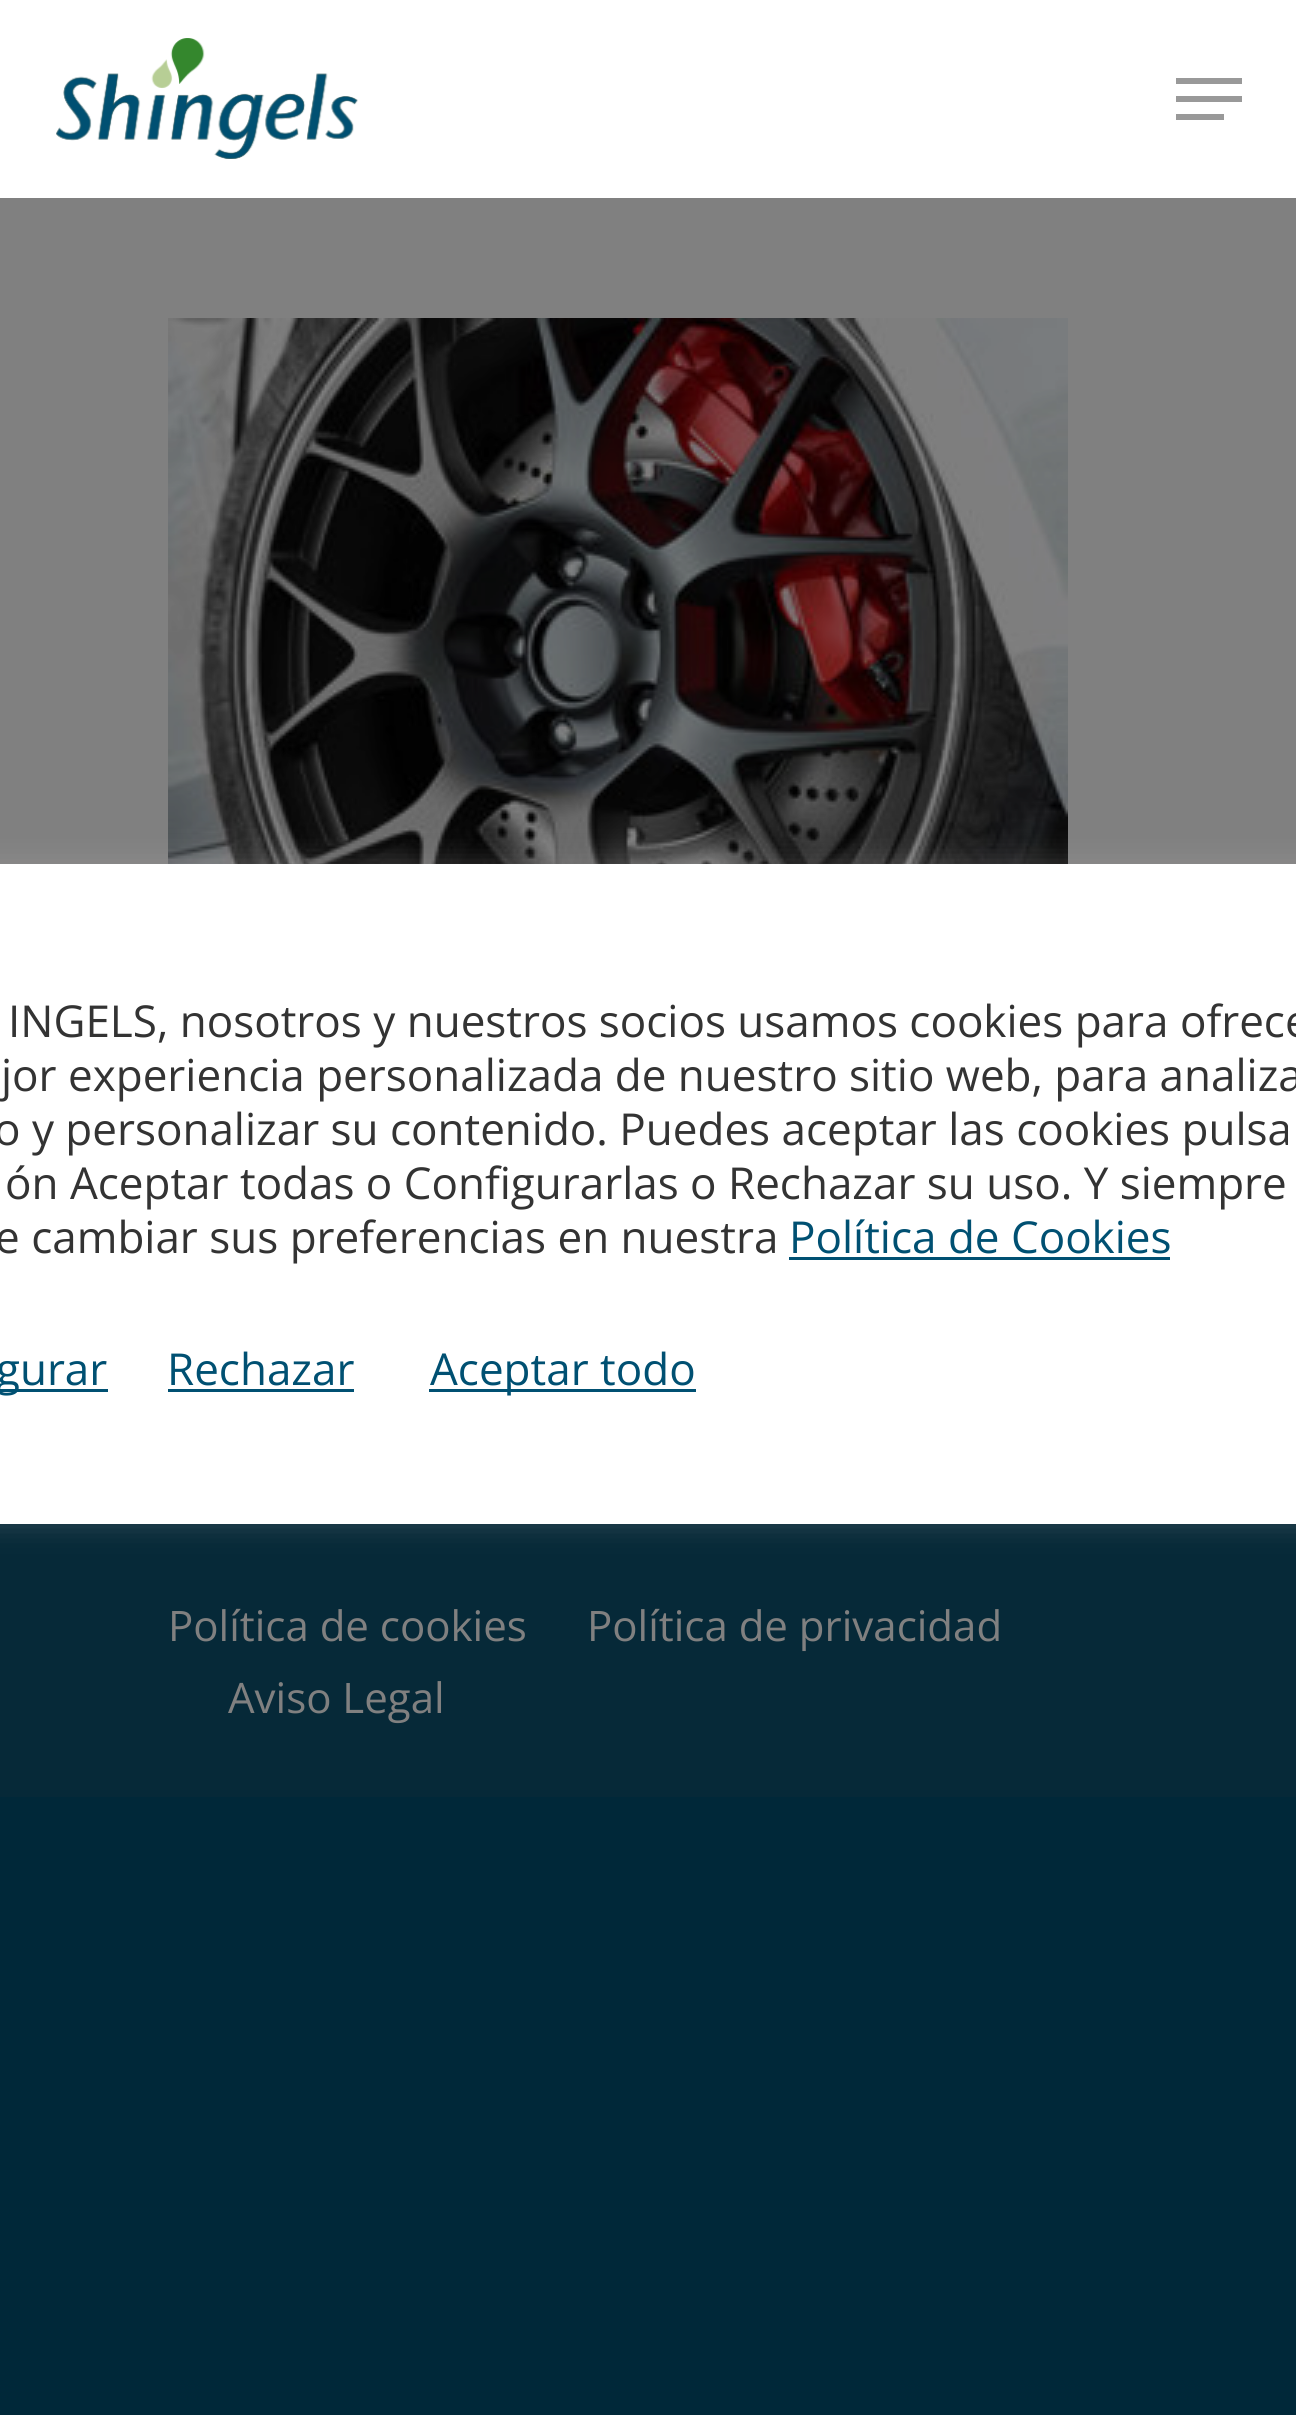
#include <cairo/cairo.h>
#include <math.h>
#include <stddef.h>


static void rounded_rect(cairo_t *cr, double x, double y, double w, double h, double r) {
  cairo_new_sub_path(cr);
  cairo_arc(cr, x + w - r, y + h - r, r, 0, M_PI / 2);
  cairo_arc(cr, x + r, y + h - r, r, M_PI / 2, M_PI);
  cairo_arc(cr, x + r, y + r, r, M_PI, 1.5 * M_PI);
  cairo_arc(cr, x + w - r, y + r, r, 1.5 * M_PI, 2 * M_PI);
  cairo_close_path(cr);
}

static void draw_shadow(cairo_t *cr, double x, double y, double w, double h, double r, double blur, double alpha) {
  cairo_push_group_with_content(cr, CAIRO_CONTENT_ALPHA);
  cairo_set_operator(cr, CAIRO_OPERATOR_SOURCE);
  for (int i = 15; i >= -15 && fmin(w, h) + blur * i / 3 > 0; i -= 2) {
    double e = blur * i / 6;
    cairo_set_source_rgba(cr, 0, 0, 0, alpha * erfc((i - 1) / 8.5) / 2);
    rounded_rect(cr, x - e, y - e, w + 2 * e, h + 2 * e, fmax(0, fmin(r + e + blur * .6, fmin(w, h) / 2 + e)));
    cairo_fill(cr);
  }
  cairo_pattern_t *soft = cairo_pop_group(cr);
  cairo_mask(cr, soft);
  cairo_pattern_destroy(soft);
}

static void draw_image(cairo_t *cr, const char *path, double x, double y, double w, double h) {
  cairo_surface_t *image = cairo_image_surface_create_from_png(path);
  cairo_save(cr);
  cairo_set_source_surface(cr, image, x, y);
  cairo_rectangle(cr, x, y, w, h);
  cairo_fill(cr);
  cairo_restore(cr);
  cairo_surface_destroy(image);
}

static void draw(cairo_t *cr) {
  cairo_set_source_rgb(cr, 0, 40 / 255.0, 57 / 255.0);
  cairo_paint(cr);
  cairo_set_source_rgb(cr, 128 / 255.0, 128 / 255.0, 128 / 255.0);
  cairo_rectangle(cr, 0, 198, 1296, 666);
  cairo_fill(cr);
  cairo_set_source_rgb(cr, 1, 1, 1);
  cairo_rectangle(cr, 0, 0, 1296, 198);
  cairo_fill(cr);
  draw_image(cr, "images/1.png", 56, 38, 302, 121);
  cairo_set_source_rgb(cr, 153 / 255.0, 153 / 255.0, 153 / 255.0);
  cairo_rectangle(cr, 1176, 78, 66, 6);
  cairo_fill(cr);
  cairo_rectangle(cr, 1176, 114, 48, 6);
  cairo_fill(cr);
  cairo_rectangle(cr, 1176, 96, 66, 6);
  cairo_fill(cr);
  draw_image(cr, "images/2.png", 168, 318, 900, 546);
  cairo_set_source_rgb(cr, 6 / 255.0, 41 / 255.0, 56 / 255.0);
  cairo_rectangle(cr, 0, 1524, 1296, 273);
  cairo_fill(cr);
  cairo_set_source_rgb(cr, 172 / 255.0, 171 / 255.0, 171 / 255.0);
  draw_shadow(cr, -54, 861, 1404, 660, 9, 15, 0.3);
  cairo_set_source_rgb(cr, 1, 1, 1);
  cairo_rectangle(cr, 0, 864, 1296, 660);
  cairo_fill(cr);
  cairo_set_source_rgb(cr, 0, 80 / 255.0, 114 / 255.0);
  cairo_rectangle(cr, 789, 1257, 381, 3);
  cairo_fill(cr);
  cairo_rectangle(cr, 0, 1389, 108, 3);
  cairo_fill(cr);
  cairo_rectangle(cr, 168, 1389, 186, 3);
  cairo_fill(cr);
  cairo_rectangle(cr, 429, 1389, 267, 3);
  cairo_fill(cr);
  cairo_select_font_face(cr, "Open Sans", CAIRO_FONT_SLANT_NORMAL, CAIRO_FONT_WEIGHT_NORMAL);
  cairo_set_font_size(cr, 44);
  cairo_set_source_rgb(cr, 51 / 255.0, 51 / 255.0, 51 / 255.0);
  cairo_move_to(cr, 8, 1037);
  cairo_show_text(cr, "INGELS, nosotros y nuestros socios usamos cookies para ofrece");
  cairo_move_to(cr, 1, 1091);
  cairo_show_text(cr, "jor experiencia personalizada de nuestro sitio web, para analiza");
  cairo_move_to(cr, -6, 1145);
  cairo_show_text(cr, "o y personalizar su contenido. Puedes aceptar las cookies pulsa");
  cairo_move_to(cr, 5, 1199);
  cairo_show_text(cr, "ón Aceptar todas o Configurarlas o Rechazar su uso. Y siempre");
  cairo_move_to(cr, -5, 1253);
  cairo_show_text(cr, "e cambiar sus preferencias en nuestra");
  cairo_set_source_rgb(cr, 0, 80 / 255.0, 114 / 255.0);
  cairo_move_to(cr, 789, 1253);
  cairo_show_text(cr, "Política de Cookies");
  cairo_move_to(cr, -4, 1385);
  cairo_show_text(cr, "gurar");
  cairo_move_to(cr, 167, 1385);
  cairo_show_text(cr, "Rechazar");
  cairo_move_to(cr, 430, 1385);
  cairo_show_text(cr, "Aceptar todo");
  cairo_set_font_size(cr, 42);
  cairo_set_source_rgb(cr, 128 / 255.0, 128 / 255.0, 128 / 255.0);
  cairo_move_to(cr, 168, 1641);
  cairo_show_text(cr, "Política de cookies");
  cairo_move_to(cr, 587, 1641);
  cairo_show_text(cr, "Política de privacidad");
  cairo_move_to(cr, 228, 1713);
  cairo_show_text(cr, "Aviso Legal");
}

int main(void) {
  cairo_surface_t *surface = cairo_image_surface_create(CAIRO_FORMAT_RGB24, 1296, 2415);
  cairo_t *cr = cairo_create(surface);
  cairo_font_options_t *options = cairo_font_options_create();
  cairo_font_options_set_hint_metrics(options, CAIRO_HINT_METRICS_OFF);
  cairo_font_options_set_hint_style(options, CAIRO_HINT_STYLE_NONE);
  cairo_set_font_options(cr, options);
  cairo_set_miter_limit(cr, 4);
  draw(cr);
  cairo_surface_write_to_png(surface, "out.png");
  cairo_font_options_destroy(options);
  cairo_destroy(cr);
  cairo_surface_destroy(surface);
  return 0;
}
